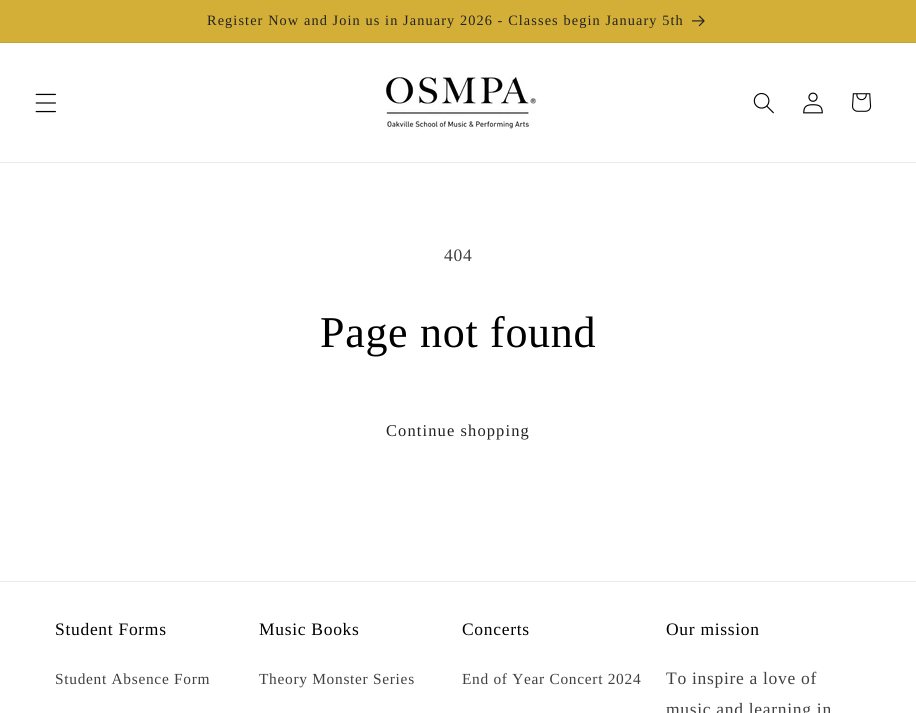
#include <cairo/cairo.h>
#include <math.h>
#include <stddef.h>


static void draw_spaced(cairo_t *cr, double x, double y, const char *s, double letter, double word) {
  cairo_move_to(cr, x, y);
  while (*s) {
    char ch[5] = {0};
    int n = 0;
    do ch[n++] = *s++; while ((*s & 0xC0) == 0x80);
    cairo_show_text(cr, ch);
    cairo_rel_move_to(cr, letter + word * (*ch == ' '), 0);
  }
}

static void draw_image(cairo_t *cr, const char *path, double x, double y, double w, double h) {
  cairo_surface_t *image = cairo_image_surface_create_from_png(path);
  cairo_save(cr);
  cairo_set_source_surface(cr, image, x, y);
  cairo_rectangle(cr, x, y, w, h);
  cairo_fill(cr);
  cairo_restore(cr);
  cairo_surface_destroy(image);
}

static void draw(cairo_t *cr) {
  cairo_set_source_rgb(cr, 1, 1, 1);
  cairo_paint(cr);
  cairo_set_source_rgb(cr, 212 / 255.0, 175 / 255.0, 55 / 255.0);
  cairo_rectangle(cr, 0, 0, 916, 42);
  cairo_fill(cr);
  cairo_set_source_rgb(cr, 198 / 255.0, 164 / 255.0, 53 / 255.0);
  cairo_rectangle(cr, 0, 42, 916, 1);
  cairo_fill(cr);
  draw_image(cr, "images/1.png", 692, 15, 13, 12);
  cairo_set_source_rgb(cr, 235 / 255.0, 235 / 255.0, 235 / 255.0);
  cairo_rectangle(cr, 0, 162, 916, 1);
  cairo_fill(cr);
  draw_image(cr, "images/2.png", 35, 93, 21, 20);
  draw_image(cr, "images/3.png", 385, 77, 152, 52);
  draw_image(cr, "images/4.png", 753, 92, 21, 22);
  draw_image(cr, "images/5.png", 803, 92, 20, 22);
  draw_image(cr, "images/6.png", 852, 93, 20, 19);
  cairo_rectangle(cr, 0, 581, 916, 1);
  cairo_fill(cr);
  cairo_select_font_face(cr, "Liberation Serif", CAIRO_FONT_SLANT_NORMAL, CAIRO_FONT_WEIGHT_NORMAL);
  cairo_set_font_size(cr, 14.3);
  cairo_set_source_rgb(cr, 34 / 255.0, 34 / 255.0, 34 / 255.0);
  draw_spaced(cr, 207, 25, "Register Now and Join us in January 2026 - Classes begin January 5th", 1.1, 0);
  cairo_set_font_size(cr, 17.5);
  cairo_set_source_rgb(cr, 64 / 255.0, 64 / 255.0, 64 / 255.0);
  draw_spaced(cr, 444, 261, "404", 0.7, 0);
  cairo_set_font_size(cr, 44);
  cairo_set_source_rgb(cr, 0, 0, 0);
  draw_spaced(cr, 320, 347, "Page not found", 0.7, 0);
  cairo_set_font_size(cr, 16.5);
  cairo_set_source_rgb(cr, 34 / 255.0, 34 / 255.0, 34 / 255.0);
  draw_spaced(cr, 386, 436, "Continue shopping", 1.1, 0);
  cairo_set_font_size(cr, 17.5);
  cairo_set_source_rgb(cr, 0, 0, 0);
  draw_spaced(cr, 55, 635, "Student Forms", 0.7, 0);
  cairo_set_font_size(cr, 15.4);
  cairo_set_source_rgb(cr, 64 / 255.0, 64 / 255.0, 64 / 255.0);
  draw_spaced(cr, 55, 684, "Student Absence Form", 0.7, 0);
  cairo_set_font_size(cr, 17.5);
  cairo_set_source_rgb(cr, 0, 0, 0);
  draw_spaced(cr, 259, 635, "Music Books", 0.7, 0);
  cairo_set_font_size(cr, 15.4);
  cairo_set_source_rgb(cr, 64 / 255.0, 64 / 255.0, 64 / 255.0);
  draw_spaced(cr, 259, 684, "Theory Monster Series", 0.7, 0);
  cairo_set_font_size(cr, 17.5);
  cairo_set_source_rgb(cr, 0, 0, 0);
  draw_spaced(cr, 462, 635, "Concerts", 0.7, 0);
  cairo_set_font_size(cr, 15.4);
  cairo_set_source_rgb(cr, 64 / 255.0, 64 / 255.0, 64 / 255.0);
  draw_spaced(cr, 462, 684, "End of Year Concert 2024", 0.7, 0);
  cairo_set_font_size(cr, 17.5);
  cairo_set_source_rgb(cr, 0, 0, 0);
  draw_spaced(cr, 666, 635, "Our mission", 0.7, 0);
  cairo_set_source_rgb(cr, 64 / 255.0, 64 / 255.0, 64 / 255.0);
  draw_spaced(cr, 666, 684, "To inspire a love of", 0.7, 0);
  draw_spaced(cr, 666, 715, "music and learning in", 0.7, 0);
}

int main(void) {
  cairo_surface_t *surface = cairo_image_surface_create(CAIRO_FORMAT_RGB24, 916, 713);
  cairo_t *cr = cairo_create(surface);
  cairo_font_options_t *options = cairo_font_options_create();
  cairo_font_options_set_hint_metrics(options, CAIRO_HINT_METRICS_OFF);
  cairo_font_options_set_hint_style(options, CAIRO_HINT_STYLE_NONE);
  cairo_set_font_options(cr, options);
  cairo_set_miter_limit(cr, 4);
  draw(cr);
  cairo_surface_write_to_png(surface, "out.png");
  cairo_font_options_destroy(options);
  cairo_destroy(cr);
  cairo_surface_destroy(surface);
  return 0;
}
